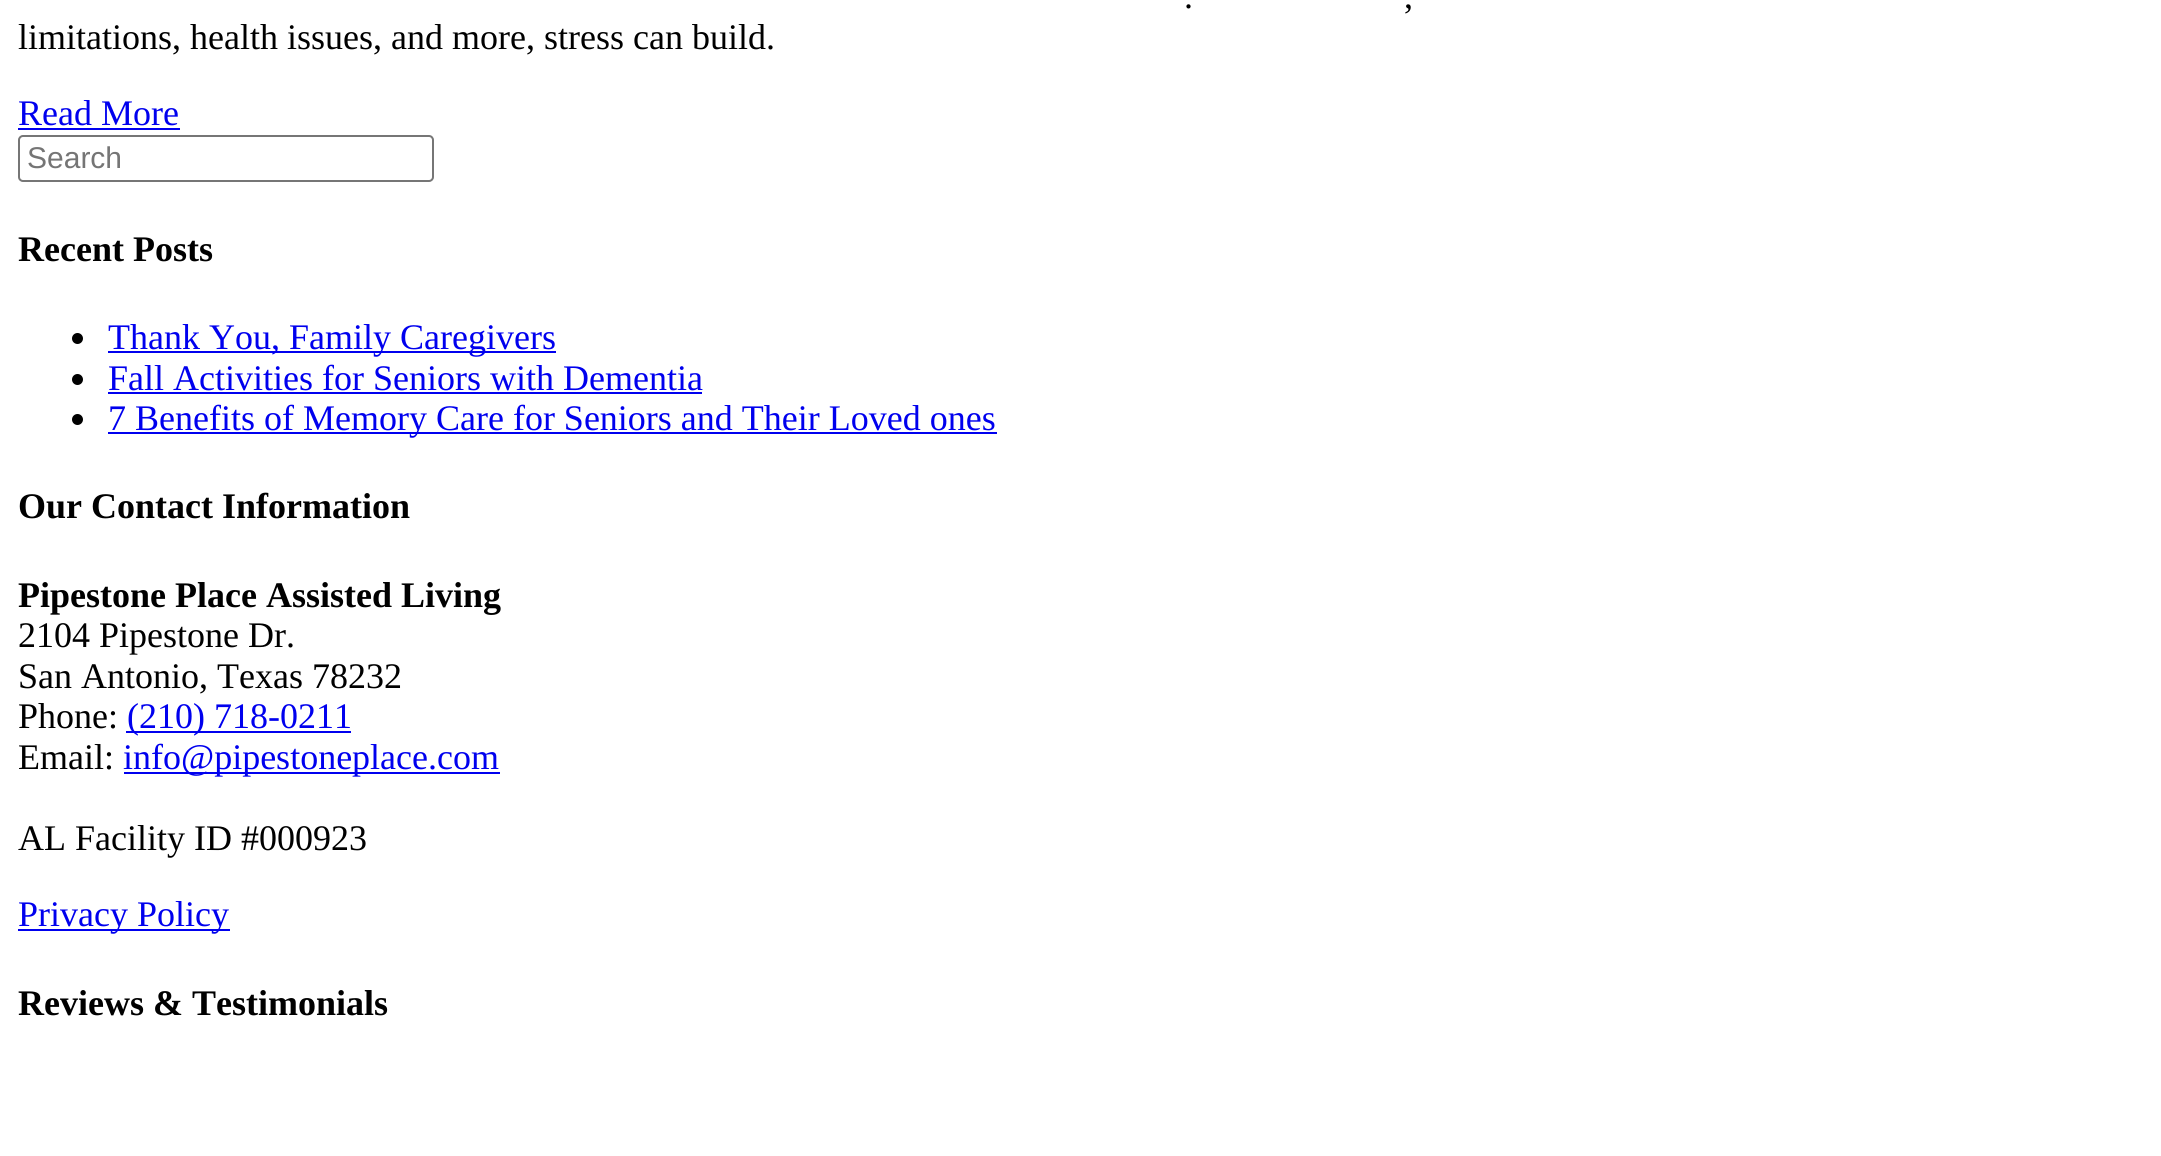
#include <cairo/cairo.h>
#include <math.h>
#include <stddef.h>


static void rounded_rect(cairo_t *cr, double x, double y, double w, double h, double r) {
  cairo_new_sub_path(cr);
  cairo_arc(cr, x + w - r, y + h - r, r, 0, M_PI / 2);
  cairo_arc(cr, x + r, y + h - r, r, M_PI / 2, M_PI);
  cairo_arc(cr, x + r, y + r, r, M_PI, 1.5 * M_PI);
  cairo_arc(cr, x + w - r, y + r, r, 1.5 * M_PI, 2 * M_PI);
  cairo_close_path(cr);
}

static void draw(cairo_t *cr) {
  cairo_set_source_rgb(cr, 1, 1, 1);
  cairo_paint(cr);
  cairo_set_source_rgb(cr, 0, 0, 238 / 255.0);
  cairo_rectangle(cr, 18, 128, 162, 2);
  cairo_fill(cr);
  rounded_rect(cr, 19, 136, 414, 45, 4);
  cairo_set_source_rgb(cr, 118 / 255.0, 118 / 255.0, 118 / 255.0);
  cairo_stroke(cr);
  cairo_set_source_rgb(cr, 0, 0, 0);
  cairo_arc(cr, 77.5, 338.5, 5.5, 0, 2 * M_PI);
  cairo_fill(cr);
  cairo_set_source_rgb(cr, 0, 0, 238 / 255.0);
  cairo_rectangle(cr, 108, 351, 448, 2);
  cairo_fill(cr);
  cairo_set_source_rgb(cr, 0, 0, 0);
  cairo_arc(cr, 77.5, 379.5, 5.5, 0, 2 * M_PI);
  cairo_fill(cr);
  cairo_set_source_rgb(cr, 0, 0, 238 / 255.0);
  cairo_rectangle(cr, 108, 392, 594, 2);
  cairo_fill(cr);
  cairo_set_source_rgb(cr, 0, 0, 0);
  cairo_arc(cr, 77.5, 419.5, 5.5, 0, 2 * M_PI);
  cairo_fill(cr);
  cairo_set_source_rgb(cr, 0, 0, 238 / 255.0);
  cairo_rectangle(cr, 108, 432, 889, 2);
  cairo_fill(cr);
  cairo_rectangle(cr, 126, 731, 225, 2);
  cairo_fill(cr);
  cairo_rectangle(cr, 124, 772, 376, 2);
  cairo_fill(cr);
  cairo_rectangle(cr, 18, 929, 212, 2);
  cairo_fill(cr);
  cairo_select_font_face(cr, "Liberation Serif", CAIRO_FONT_SLANT_NORMAL, CAIRO_FONT_WEIGHT_NORMAL);
  cairo_set_font_size(cr, 36);
  cairo_set_source_rgb(cr, 0, 0, 0);
  cairo_move_to(cr, 1184, 8);
  cairo_show_text(cr, ".");
  cairo_move_to(cr, 1404, 8);
  cairo_show_text(cr, ",");
  cairo_move_to(cr, 18, 49);
  cairo_show_text(cr, "limitations, health issues, and more, stress can build.");
  cairo_set_source_rgb(cr, 0, 0, 238 / 255.0);
  cairo_move_to(cr, 18, 125);
  cairo_show_text(cr, "Read More");
  cairo_select_font_face(cr, "Liberation Sans", CAIRO_FONT_SLANT_NORMAL, CAIRO_FONT_WEIGHT_NORMAL);
  cairo_set_font_size(cr, 30);
  cairo_set_source_rgb(cr, 117 / 255.0, 117 / 255.0, 117 / 255.0);
  cairo_move_to(cr, 27, 168);
  cairo_show_text(cr, "Search");
  cairo_select_font_face(cr, "Liberation Serif", CAIRO_FONT_SLANT_NORMAL, CAIRO_FONT_WEIGHT_BOLD);
  cairo_set_font_size(cr, 36);
  cairo_set_source_rgb(cr, 0, 0, 0);
  cairo_move_to(cr, 18, 261);
  cairo_show_text(cr, "Recent Posts");
  cairo_select_font_face(cr, "Liberation Serif", CAIRO_FONT_SLANT_NORMAL, CAIRO_FONT_WEIGHT_NORMAL);
  cairo_set_source_rgb(cr, 0, 0, 238 / 255.0);
  cairo_move_to(cr, 108, 349);
  cairo_show_text(cr, "Thank You, Family Caregivers");
  cairo_move_to(cr, 108, 390);
  cairo_show_text(cr, "Fall Activities for Seniors with Dementia");
  cairo_move_to(cr, 108, 430);
  cairo_show_text(cr, "7 Benefits of Memory Care for Seniors and Their Loved ones");
  cairo_select_font_face(cr, "Liberation Serif", CAIRO_FONT_SLANT_NORMAL, CAIRO_FONT_WEIGHT_BOLD);
  cairo_set_source_rgb(cr, 0, 0, 0);
  cairo_move_to(cr, 18, 518);
  cairo_show_text(cr, "Our Contact Information");
  cairo_move_to(cr, 18, 607);
  cairo_show_text(cr, "Pipestone Place Assisted Living");
  cairo_select_font_face(cr, "Liberation Serif", CAIRO_FONT_SLANT_NORMAL, CAIRO_FONT_WEIGHT_NORMAL);
  cairo_move_to(cr, 18, 647);
  cairo_show_text(cr, "2104 Pipestone Dr.");
  cairo_move_to(cr, 18, 688);
  cairo_show_text(cr, "San Antonio, Texas 78232");
  cairo_move_to(cr, 18, 728);
  cairo_show_text(cr, "Phone:");
  cairo_set_source_rgb(cr, 0, 0, 238 / 255.0);
  cairo_move_to(cr, 127, 728);
  cairo_show_text(cr, "(210) 718-0211");
  cairo_set_source_rgb(cr, 0, 0, 0);
  cairo_move_to(cr, 18, 769);
  cairo_show_text(cr, "Email:");
  cairo_set_source_rgb(cr, 0, 0, 238 / 255.0);
  cairo_move_to(cr, 123, 769);
  cairo_show_text(cr, "info@pipestoneplace.com");
  cairo_set_source_rgb(cr, 0, 0, 0);
  cairo_move_to(cr, 18, 850);
  cairo_show_text(cr, "AL Facility ID #000923");
  cairo_set_source_rgb(cr, 0, 0, 238 / 255.0);
  cairo_move_to(cr, 18, 926);
  cairo_show_text(cr, "Privacy Policy");
  cairo_select_font_face(cr, "Liberation Serif", CAIRO_FONT_SLANT_NORMAL, CAIRO_FONT_WEIGHT_BOLD);
  cairo_set_source_rgb(cr, 0, 0, 0);
  cairo_move_to(cr, 18, 1015);
  cairo_show_text(cr, "Reviews & Testimonials");
}

int main(void) {
  cairo_surface_t *surface = cairo_image_surface_create(CAIRO_FORMAT_RGB24, 2161, 1156);
  cairo_t *cr = cairo_create(surface);
  cairo_font_options_t *options = cairo_font_options_create();
  cairo_font_options_set_hint_metrics(options, CAIRO_HINT_METRICS_OFF);
  cairo_font_options_set_hint_style(options, CAIRO_HINT_STYLE_NONE);
  cairo_set_font_options(cr, options);
  cairo_set_miter_limit(cr, 4);
  draw(cr);
  cairo_surface_write_to_png(surface, "out.png");
  cairo_font_options_destroy(options);
  cairo_destroy(cr);
  cairo_surface_destroy(surface);
  return 0;
}
